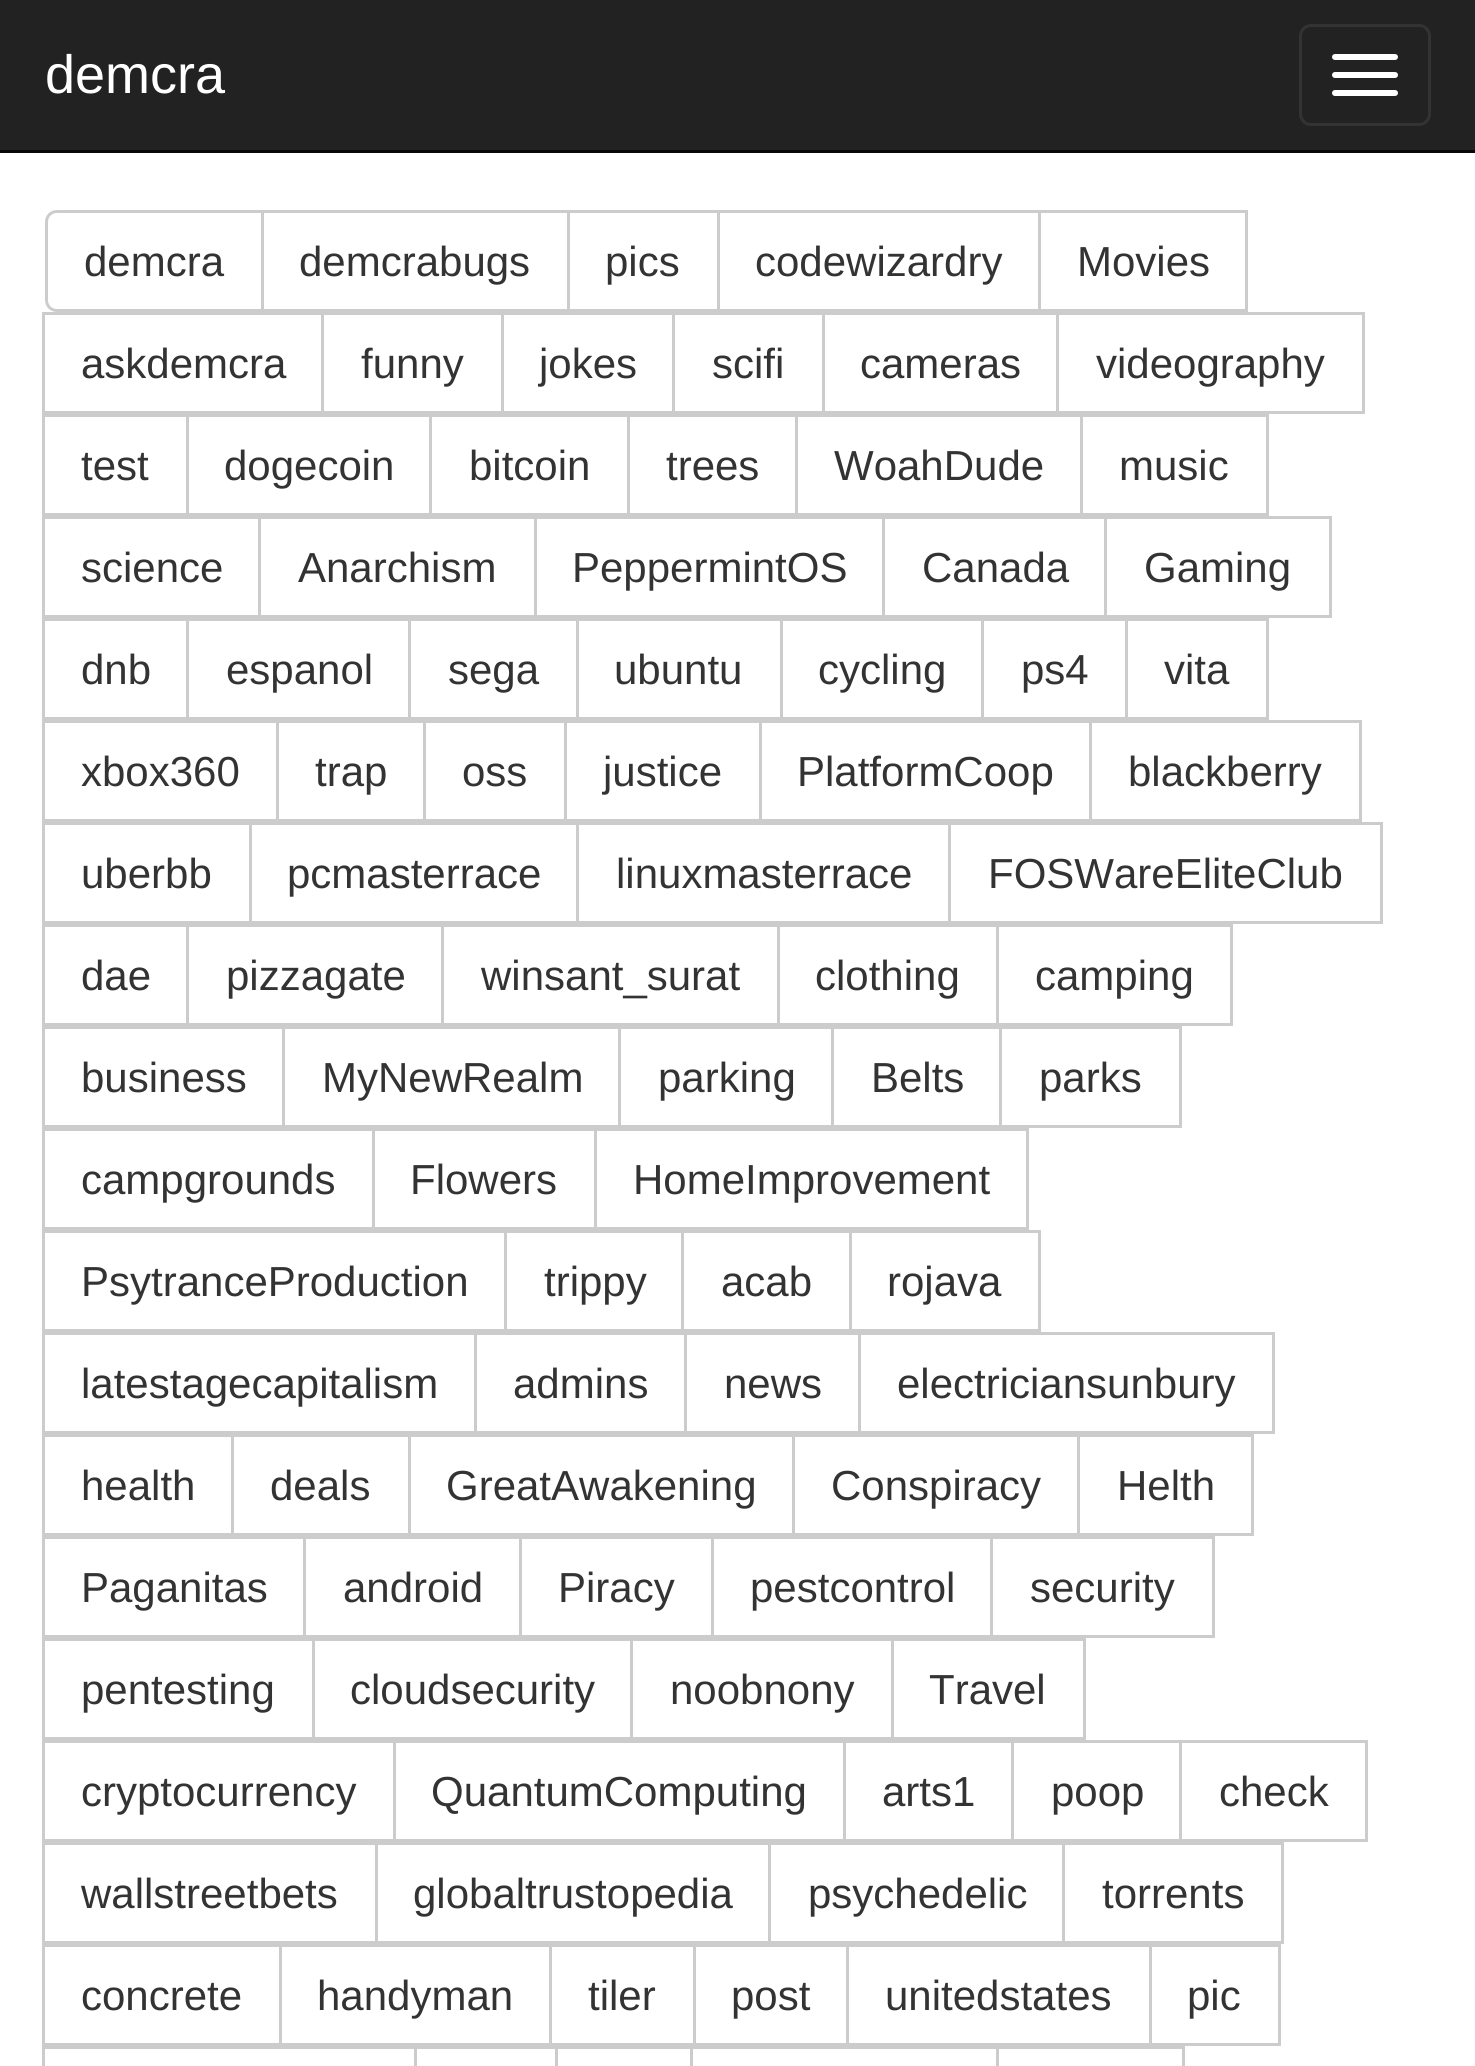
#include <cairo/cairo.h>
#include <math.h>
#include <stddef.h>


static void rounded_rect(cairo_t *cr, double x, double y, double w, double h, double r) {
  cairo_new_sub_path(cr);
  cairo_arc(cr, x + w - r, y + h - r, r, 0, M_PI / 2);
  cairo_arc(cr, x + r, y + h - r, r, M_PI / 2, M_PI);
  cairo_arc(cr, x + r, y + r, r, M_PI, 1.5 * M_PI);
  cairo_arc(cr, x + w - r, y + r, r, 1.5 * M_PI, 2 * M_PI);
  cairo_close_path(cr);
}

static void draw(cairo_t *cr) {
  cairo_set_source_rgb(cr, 1, 1, 1);
  cairo_paint(cr);
  cairo_set_source_rgb(cr, 34 / 255.0, 34 / 255.0, 34 / 255.0);
  cairo_rectangle(cr, 0, 0, 1475, 150);
  cairo_fill(cr);
  cairo_set_source_rgb(cr, 8 / 255.0, 8 / 255.0, 8 / 255.0);
  cairo_rectangle(cr, 0, 150, 1475, 3);
  cairo_fill(cr);
  rounded_rect(cr, 1300.5, 25.5, 129, 99, 10.5);
  cairo_set_source_rgb(cr, 51 / 255.0, 51 / 255.0, 51 / 255.0);
  cairo_set_line_width(cr, 3);
  cairo_stroke(cr);
  cairo_set_source_rgb(cr, 1, 1, 1);
  rounded_rect(cr, 1332, 54, 66, 6, 3);
  cairo_fill(cr);
  rounded_rect(cr, 1332, 72, 66, 6, 3);
  cairo_fill(cr);
  rounded_rect(cr, 1332, 90, 66, 6, 3);
  cairo_fill(cr);
  cairo_new_path(cr);
  cairo_move_to(cr, 57, 211.5);
  cairo_line_to(cr, 262.5, 211.5);
  cairo_line_to(cr, 262.5, 310.5);
  cairo_line_to(cr, 57, 310.5);
  cairo_curve_to(cr, 51, 310.5, 46.5, 306, 46.5, 300);
  cairo_line_to(cr, 46.5, 222);
  cairo_curve_to(cr, 46.5, 216, 51, 211.5, 57, 211.5);
  cairo_close_path(cr);
  cairo_set_source_rgb(cr, 204 / 255.0, 204 / 255.0, 204 / 255.0);
  cairo_stroke(cr);
  cairo_rectangle(cr, 262.5, 211.5, 306, 99);
  cairo_stroke(cr);
  cairo_rectangle(cr, 568.5, 211.5, 150, 99);
  cairo_stroke(cr);
  cairo_rectangle(cr, 718.5, 211.5, 321, 99);
  cairo_stroke(cr);
  cairo_rectangle(cr, 1039.5, 211.5, 207, 99);
  cairo_stroke(cr);
  cairo_rectangle(cr, 43.5, 313.5, 279, 99);
  cairo_stroke(cr);
  cairo_rectangle(cr, 322.5, 313.5, 180, 99);
  cairo_stroke(cr);
  cairo_rectangle(cr, 502.5, 313.5, 171, 99);
  cairo_stroke(cr);
  cairo_rectangle(cr, 673.5, 313.5, 150, 99);
  cairo_stroke(cr);
  cairo_rectangle(cr, 823.5, 313.5, 234, 99);
  cairo_stroke(cr);
  cairo_rectangle(cr, 1057.5, 313.5, 306, 99);
  cairo_stroke(cr);
  cairo_rectangle(cr, 43.5, 415.5, 144, 99);
  cairo_stroke(cr);
  cairo_rectangle(cr, 187.5, 415.5, 243, 99);
  cairo_stroke(cr);
  cairo_rectangle(cr, 430.5, 415.5, 198, 99);
  cairo_stroke(cr);
  cairo_rectangle(cr, 628.5, 415.5, 168, 99);
  cairo_stroke(cr);
  cairo_rectangle(cr, 796.5, 415.5, 285, 99);
  cairo_stroke(cr);
  cairo_rectangle(cr, 1081.5, 415.5, 186, 99);
  cairo_stroke(cr);
  cairo_rectangle(cr, 43.5, 517.5, 216, 99);
  cairo_stroke(cr);
  cairo_rectangle(cr, 259.5, 517.5, 276, 99);
  cairo_stroke(cr);
  cairo_rectangle(cr, 535.5, 517.5, 348, 99);
  cairo_stroke(cr);
  cairo_rectangle(cr, 883.5, 517.5, 222, 99);
  cairo_stroke(cr);
  cairo_rectangle(cr, 1105.5, 517.5, 225, 99);
  cairo_stroke(cr);
  cairo_rectangle(cr, 43.5, 619.5, 144, 99);
  cairo_stroke(cr);
  cairo_rectangle(cr, 187.5, 619.5, 222, 99);
  cairo_stroke(cr);
  cairo_rectangle(cr, 409.5, 619.5, 168, 99);
  cairo_stroke(cr);
  cairo_rectangle(cr, 577.5, 619.5, 204, 99);
  cairo_stroke(cr);
  cairo_rectangle(cr, 781.5, 619.5, 201, 99);
  cairo_stroke(cr);
  cairo_rectangle(cr, 982.5, 619.5, 144, 99);
  cairo_stroke(cr);
  cairo_rectangle(cr, 1126.5, 619.5, 141, 99);
  cairo_stroke(cr);
  cairo_rectangle(cr, 43.5, 721.5, 234, 99);
  cairo_stroke(cr);
  cairo_rectangle(cr, 277.5, 721.5, 147, 99);
  cairo_stroke(cr);
  cairo_rectangle(cr, 424.5, 721.5, 141, 99);
  cairo_stroke(cr);
  cairo_rectangle(cr, 565.5, 721.5, 195, 99);
  cairo_stroke(cr);
  cairo_rectangle(cr, 760.5, 721.5, 330, 99);
  cairo_stroke(cr);
  cairo_rectangle(cr, 1090.5, 721.5, 270, 99);
  cairo_stroke(cr);
  cairo_rectangle(cr, 43.5, 823.5, 207, 99);
  cairo_stroke(cr);
  cairo_rectangle(cr, 250.5, 823.5, 327, 99);
  cairo_stroke(cr);
  cairo_rectangle(cr, 577.5, 823.5, 372, 99);
  cairo_stroke(cr);
  cairo_rectangle(cr, 949.5, 823.5, 432, 99);
  cairo_stroke(cr);
  cairo_rectangle(cr, 43.5, 925.5, 144, 99);
  cairo_stroke(cr);
  cairo_rectangle(cr, 187.5, 925.5, 255, 99);
  cairo_stroke(cr);
  cairo_rectangle(cr, 442.5, 925.5, 336, 99);
  cairo_stroke(cr);
  cairo_rectangle(cr, 778.5, 925.5, 219, 99);
  cairo_stroke(cr);
  cairo_rectangle(cr, 997.5, 925.5, 234, 99);
  cairo_stroke(cr);
  cairo_rectangle(cr, 43.5, 1027.5, 240, 99);
  cairo_stroke(cr);
  cairo_rectangle(cr, 283.5, 1027.5, 336, 99);
  cairo_stroke(cr);
  cairo_rectangle(cr, 619.5, 1027.5, 213, 99);
  cairo_stroke(cr);
  cairo_rectangle(cr, 832.5, 1027.5, 168, 99);
  cairo_stroke(cr);
  cairo_rectangle(cr, 1000.5, 1027.5, 180, 99);
  cairo_stroke(cr);
  cairo_rectangle(cr, 43.5, 1129.5, 330, 99);
  cairo_stroke(cr);
  cairo_rectangle(cr, 373.5, 1129.5, 222, 99);
  cairo_stroke(cr);
  cairo_rectangle(cr, 595.5, 1129.5, 432, 99);
  cairo_stroke(cr);
  cairo_rectangle(cr, 43.5, 1231.5, 462, 99);
  cairo_stroke(cr);
  cairo_rectangle(cr, 505.5, 1231.5, 177, 99);
  cairo_stroke(cr);
  cairo_rectangle(cr, 682.5, 1231.5, 168, 99);
  cairo_stroke(cr);
  cairo_rectangle(cr, 850.5, 1231.5, 189, 99);
  cairo_stroke(cr);
  cairo_rectangle(cr, 43.5, 1333.5, 432, 99);
  cairo_stroke(cr);
  cairo_rectangle(cr, 475.5, 1333.5, 210, 99);
  cairo_stroke(cr);
  cairo_rectangle(cr, 685.5, 1333.5, 174, 99);
  cairo_stroke(cr);
  cairo_rectangle(cr, 859.5, 1333.5, 414, 99);
  cairo_stroke(cr);
  cairo_rectangle(cr, 43.5, 1435.5, 189, 99);
  cairo_stroke(cr);
  cairo_rectangle(cr, 232.5, 1435.5, 177, 99);
  cairo_stroke(cr);
  cairo_rectangle(cr, 409.5, 1435.5, 384, 99);
  cairo_stroke(cr);
  cairo_rectangle(cr, 793.5, 1435.5, 285, 99);
  cairo_stroke(cr);
  cairo_rectangle(cr, 1078.5, 1435.5, 174, 99);
  cairo_stroke(cr);
  cairo_rectangle(cr, 43.5, 1537.5, 261, 99);
  cairo_stroke(cr);
  cairo_rectangle(cr, 304.5, 1537.5, 216, 99);
  cairo_stroke(cr);
  cairo_rectangle(cr, 520.5, 1537.5, 192, 99);
  cairo_stroke(cr);
  cairo_rectangle(cr, 712.5, 1537.5, 279, 99);
  cairo_stroke(cr);
  cairo_rectangle(cr, 991.5, 1537.5, 222, 99);
  cairo_stroke(cr);
  cairo_rectangle(cr, 43.5, 1639.5, 270, 99);
  cairo_stroke(cr);
  cairo_rectangle(cr, 313.5, 1639.5, 318, 99);
  cairo_stroke(cr);
  cairo_rectangle(cr, 631.5, 1639.5, 261, 99);
  cairo_stroke(cr);
  cairo_rectangle(cr, 892.5, 1639.5, 192, 99);
  cairo_stroke(cr);
  cairo_rectangle(cr, 43.5, 1741.5, 351, 99);
  cairo_stroke(cr);
  cairo_rectangle(cr, 394.5, 1741.5, 450, 99);
  cairo_stroke(cr);
  cairo_rectangle(cr, 844.5, 1741.5, 168, 99);
  cairo_stroke(cr);
  cairo_rectangle(cr, 1012.5, 1741.5, 168, 99);
  cairo_stroke(cr);
  cairo_rectangle(cr, 1180.5, 1741.5, 186, 99);
  cairo_stroke(cr);
  cairo_rectangle(cr, 43.5, 1843.5, 333, 99);
  cairo_stroke(cr);
  cairo_rectangle(cr, 376.5, 1843.5, 393, 99);
  cairo_stroke(cr);
  cairo_rectangle(cr, 769.5, 1843.5, 294, 99);
  cairo_stroke(cr);
  cairo_rectangle(cr, 1063.5, 1843.5, 219, 99);
  cairo_stroke(cr);
  cairo_rectangle(cr, 43.5, 1945.5, 237, 99);
  cairo_stroke(cr);
  cairo_rectangle(cr, 280.5, 1945.5, 270, 99);
  cairo_stroke(cr);
  cairo_rectangle(cr, 550.5, 1945.5, 144, 99);
  cairo_stroke(cr);
  cairo_rectangle(cr, 694.5, 1945.5, 153, 99);
  cairo_stroke(cr);
  cairo_rectangle(cr, 847.5, 1945.5, 303, 99);
  cairo_stroke(cr);
  cairo_rectangle(cr, 1150.5, 1945.5, 129, 99);
  cairo_stroke(cr);
  cairo_rectangle(cr, 43.5, 2047.5, 372, 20);
  cairo_stroke(cr);
  cairo_rectangle(cr, 415.5, 2047.5, 141, 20);
  cairo_stroke(cr);
  cairo_rectangle(cr, 556.5, 2047.5, 135, 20);
  cairo_stroke(cr);
  cairo_rectangle(cr, 691.5, 2047.5, 306, 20);
  cairo_stroke(cr);
  cairo_rectangle(cr, 997.5, 2047.5, 186, 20);
  cairo_stroke(cr);
  cairo_select_font_face(cr, "Liberation Sans", CAIRO_FONT_SLANT_NORMAL, CAIRO_FONT_WEIGHT_NORMAL);
  cairo_set_font_size(cr, 54);
  cairo_set_source_rgb(cr, 1, 1, 1);
  cairo_move_to(cr, 45, 93);
  cairo_show_text(cr, "demcra");
  cairo_set_font_size(cr, 42);
  cairo_set_source_rgb(cr, 51 / 255.0, 51 / 255.0, 51 / 255.0);
  cairo_move_to(cr, 84, 276);
  cairo_show_text(cr, "demcra");
  cairo_move_to(cr, 299, 276);
  cairo_show_text(cr, "demcrabugs");
  cairo_move_to(cr, 605, 276);
  cairo_show_text(cr, "pics");
  cairo_move_to(cr, 755, 276);
  cairo_show_text(cr, "codewizardry");
  cairo_move_to(cr, 1077, 276);
  cairo_show_text(cr, "Movies");
  cairo_move_to(cr, 81, 378);
  cairo_show_text(cr, "askdemcra");
  cairo_move_to(cr, 361, 378);
  cairo_show_text(cr, "funny");
  cairo_move_to(cr, 539, 378);
  cairo_show_text(cr, "jokes");
  cairo_move_to(cr, 712, 378);
  cairo_show_text(cr, "scifi");
  cairo_move_to(cr, 860, 378);
  cairo_show_text(cr, "cameras");
  cairo_move_to(cr, 1096, 378);
  cairo_show_text(cr, "videography");
  cairo_move_to(cr, 81, 480);
  cairo_show_text(cr, "test");
  cairo_move_to(cr, 224, 480);
  cairo_show_text(cr, "dogecoin");
  cairo_move_to(cr, 469, 480);
  cairo_show_text(cr, "bitcoin");
  cairo_move_to(cr, 666, 480);
  cairo_show_text(cr, "trees");
  cairo_move_to(cr, 834, 480);
  cairo_show_text(cr, "WoahDude");
  cairo_move_to(cr, 1119, 480);
  cairo_show_text(cr, "music");
  cairo_move_to(cr, 81, 582);
  cairo_show_text(cr, "science");
  cairo_move_to(cr, 298, 582);
  cairo_show_text(cr, "Anarchism");
  cairo_move_to(cr, 572, 582);
  cairo_show_text(cr, "PeppermintOS");
  cairo_move_to(cr, 922, 582);
  cairo_show_text(cr, "Canada");
  cairo_move_to(cr, 1144, 582);
  cairo_show_text(cr, "Gaming");
  cairo_move_to(cr, 81, 684);
  cairo_show_text(cr, "dnb");
  cairo_move_to(cr, 226, 684);
  cairo_show_text(cr, "espanol");
  cairo_move_to(cr, 448, 684);
  cairo_show_text(cr, "sega");
  cairo_move_to(cr, 614, 684);
  cairo_show_text(cr, "ubuntu");
  cairo_move_to(cr, 818, 684);
  cairo_show_text(cr, "cycling");
  cairo_move_to(cr, 1021, 684);
  cairo_show_text(cr, "ps4");
  cairo_move_to(cr, 1164, 684);
  cairo_show_text(cr, "vita");
  cairo_move_to(cr, 81, 786);
  cairo_show_text(cr, "xbox360");
  cairo_move_to(cr, 315, 786);
  cairo_show_text(cr, "trap");
  cairo_move_to(cr, 462, 786);
  cairo_show_text(cr, "oss");
  cairo_move_to(cr, 603, 786);
  cairo_show_text(cr, "justice");
  cairo_move_to(cr, 797, 786);
  cairo_show_text(cr, "PlatformCoop");
  cairo_move_to(cr, 1128, 786);
  cairo_show_text(cr, "blackberry");
  cairo_move_to(cr, 81, 888);
  cairo_show_text(cr, "uberbb");
  cairo_move_to(cr, 287, 888);
  cairo_show_text(cr, "pcmasterrace");
  cairo_move_to(cr, 616, 888);
  cairo_show_text(cr, "linuxmasterrace");
  cairo_move_to(cr, 988, 888);
  cairo_show_text(cr, "FOSWareEliteClub");
  cairo_move_to(cr, 81, 990);
  cairo_show_text(cr, "dae");
  cairo_move_to(cr, 226, 990);
  cairo_show_text(cr, "pizzagate");
  cairo_move_to(cr, 481, 990);
  cairo_show_text(cr, "winsant_surat");
  cairo_move_to(cr, 815, 990);
  cairo_show_text(cr, "clothing");
  cairo_move_to(cr, 1035, 990);
  cairo_show_text(cr, "camping");
  cairo_move_to(cr, 81, 1092);
  cairo_show_text(cr, "business");
  cairo_move_to(cr, 322, 1092);
  cairo_show_text(cr, "MyNewRealm");
  cairo_move_to(cr, 658, 1092);
  cairo_show_text(cr, "parking");
  cairo_move_to(cr, 871, 1092);
  cairo_show_text(cr, "Belts");
  cairo_move_to(cr, 1039, 1092);
  cairo_show_text(cr, "parks");
  cairo_move_to(cr, 81, 1194);
  cairo_show_text(cr, "campgrounds");
  cairo_move_to(cr, 410, 1194);
  cairo_show_text(cr, "Flowers");
  cairo_move_to(cr, 633, 1194);
  cairo_show_text(cr, "HomeImprovement");
  cairo_move_to(cr, 81, 1296);
  cairo_show_text(cr, "PsytranceProduction");
  cairo_move_to(cr, 544, 1296);
  cairo_show_text(cr, "trippy");
  cairo_move_to(cr, 721, 1296);
  cairo_show_text(cr, "acab");
  cairo_move_to(cr, 887, 1296);
  cairo_show_text(cr, "rojava");
  cairo_move_to(cr, 81, 1398);
  cairo_show_text(cr, "latestagecapitalism");
  cairo_move_to(cr, 513, 1398);
  cairo_show_text(cr, "admins");
  cairo_move_to(cr, 724, 1398);
  cairo_show_text(cr, "news");
  cairo_move_to(cr, 897, 1398);
  cairo_show_text(cr, "electriciansunbury");
  cairo_move_to(cr, 81, 1500);
  cairo_show_text(cr, "health");
  cairo_move_to(cr, 270, 1500);
  cairo_show_text(cr, "deals");
  cairo_move_to(cr, 446, 1500);
  cairo_show_text(cr, "GreatAwakening");
  cairo_move_to(cr, 831, 1500);
  cairo_show_text(cr, "Conspiracy");
  cairo_move_to(cr, 1117, 1500);
  cairo_show_text(cr, "Helth");
  cairo_move_to(cr, 81, 1602);
  cairo_show_text(cr, "Paganitas");
  cairo_move_to(cr, 343, 1602);
  cairo_show_text(cr, "android");
  cairo_move_to(cr, 558, 1602);
  cairo_show_text(cr, "Piracy");
  cairo_move_to(cr, 750, 1602);
  cairo_show_text(cr, "pestcontrol");
  cairo_move_to(cr, 1030, 1602);
  cairo_show_text(cr, "security");
  cairo_move_to(cr, 81, 1704);
  cairo_show_text(cr, "pentesting");
  cairo_move_to(cr, 350, 1704);
  cairo_show_text(cr, "cloudsecurity");
  cairo_move_to(cr, 670, 1704);
  cairo_show_text(cr, "noobnony");
  cairo_move_to(cr, 929, 1704);
  cairo_show_text(cr, "Travel");
  cairo_move_to(cr, 81, 1806);
  cairo_show_text(cr, "cryptocurrency");
  cairo_move_to(cr, 431, 1806);
  cairo_show_text(cr, "QuantumComputing");
  cairo_move_to(cr, 882, 1806);
  cairo_show_text(cr, "arts1");
  cairo_move_to(cr, 1051, 1806);
  cairo_show_text(cr, "poop");
  cairo_move_to(cr, 1219, 1806);
  cairo_show_text(cr, "check");
  cairo_move_to(cr, 81, 1908);
  cairo_show_text(cr, "wallstreetbets");
  cairo_move_to(cr, 413, 1908);
  cairo_show_text(cr, "globaltrustopedia");
  cairo_move_to(cr, 808, 1908);
  cairo_show_text(cr, "psychedelic");
  cairo_move_to(cr, 1102, 1908);
  cairo_show_text(cr, "torrents");
  cairo_move_to(cr, 81, 2010);
  cairo_show_text(cr, "concrete");
  cairo_move_to(cr, 317, 2010);
  cairo_show_text(cr, "handyman");
  cairo_move_to(cr, 588, 2010);
  cairo_show_text(cr, "tiler");
  cairo_move_to(cr, 731, 2010);
  cairo_show_text(cr, "post");
  cairo_move_to(cr, 885, 2010);
  cairo_show_text(cr, "unitedstates");
  cairo_move_to(cr, 1187, 2010);
  cairo_show_text(cr, "pic");
}

int main(void) {
  cairo_surface_t *surface = cairo_image_surface_create(CAIRO_FORMAT_RGB24, 1475, 2066);
  cairo_t *cr = cairo_create(surface);
  cairo_font_options_t *options = cairo_font_options_create();
  cairo_font_options_set_hint_metrics(options, CAIRO_HINT_METRICS_OFF);
  cairo_font_options_set_hint_style(options, CAIRO_HINT_STYLE_NONE);
  cairo_set_font_options(cr, options);
  cairo_set_miter_limit(cr, 4);
  draw(cr);
  cairo_surface_write_to_png(surface, "out.png");
  cairo_font_options_destroy(options);
  cairo_destroy(cr);
  cairo_surface_destroy(surface);
  return 0;
}
